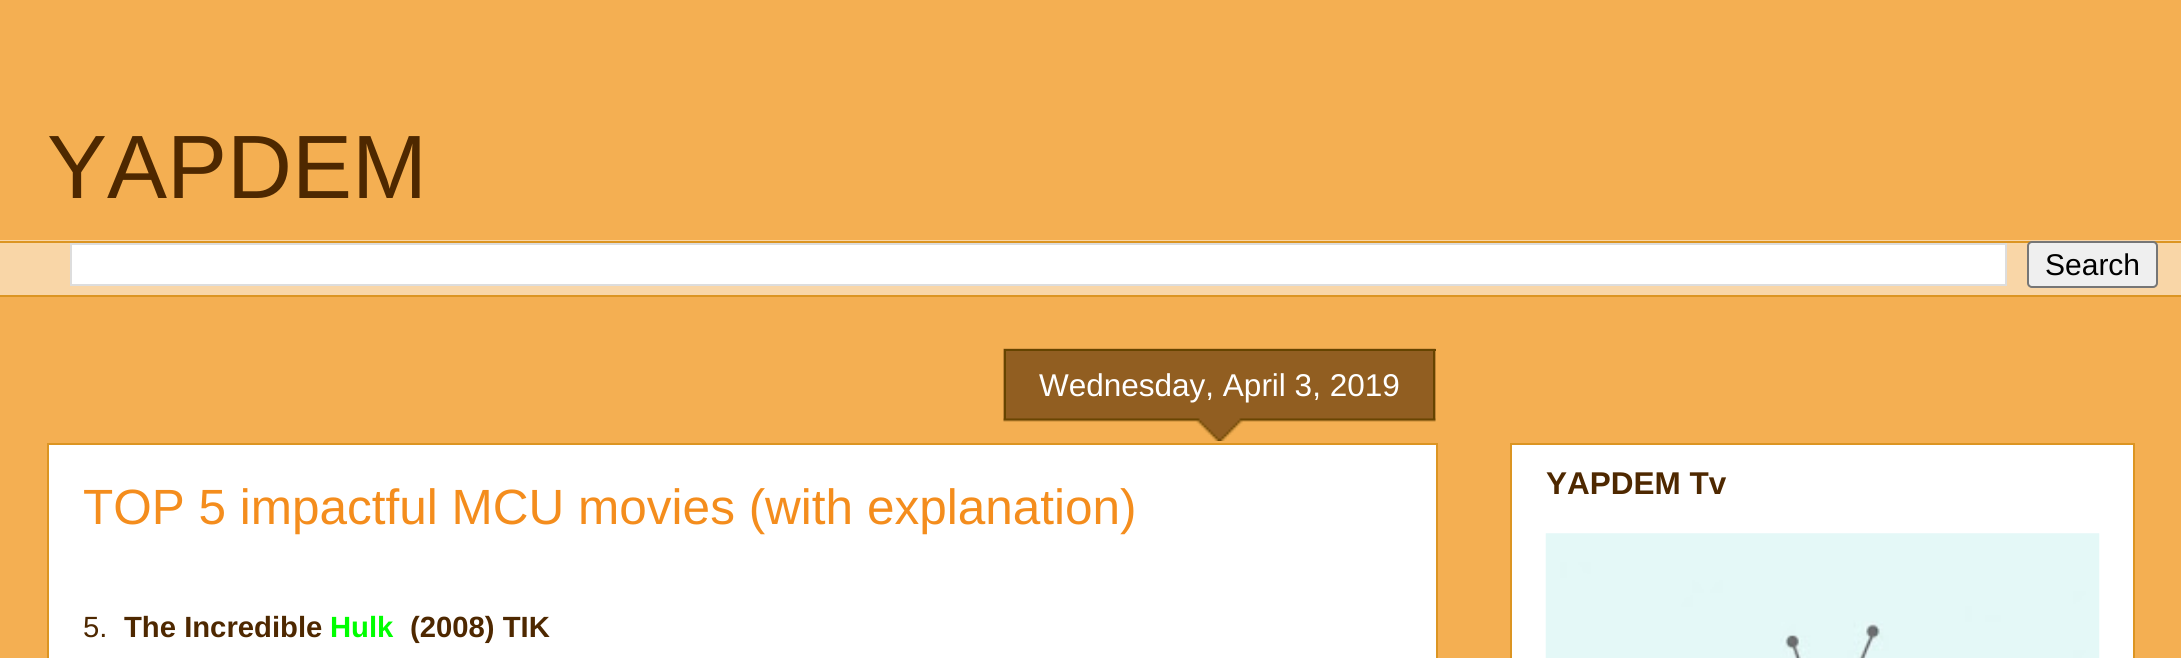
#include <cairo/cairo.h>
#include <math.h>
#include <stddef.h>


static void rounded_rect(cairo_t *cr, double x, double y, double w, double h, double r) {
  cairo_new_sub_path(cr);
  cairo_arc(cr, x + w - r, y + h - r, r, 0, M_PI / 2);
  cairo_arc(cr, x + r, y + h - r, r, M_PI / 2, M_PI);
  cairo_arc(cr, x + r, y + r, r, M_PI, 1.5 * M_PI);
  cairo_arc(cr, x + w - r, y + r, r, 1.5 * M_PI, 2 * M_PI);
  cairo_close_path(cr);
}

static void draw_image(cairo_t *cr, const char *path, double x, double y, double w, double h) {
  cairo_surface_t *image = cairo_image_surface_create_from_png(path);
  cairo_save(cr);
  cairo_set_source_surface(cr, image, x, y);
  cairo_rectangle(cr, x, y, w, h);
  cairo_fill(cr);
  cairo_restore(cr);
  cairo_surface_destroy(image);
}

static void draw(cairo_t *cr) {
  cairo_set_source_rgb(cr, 244 / 255.0, 175 / 255.0, 82 / 255.0);
  cairo_paint(cr);
  cairo_set_source_rgb(cr, 249 / 255.0, 214 / 255.0, 167 / 255.0);
  cairo_rectangle(cr, 0, 240, 2181, 55);
  cairo_fill(cr);
  cairo_set_source_rgb(cr, 220 / 255.0, 149 / 255.0, 34 / 255.0);
  cairo_rectangle(cr, 0, 241, 2181, 2);
  cairo_fill(cr);
  cairo_set_source_rgb(cr, 1, 1, 1);
  cairo_rectangle(cr, 71, 244, 1935, 41);
  cairo_fill_preserve(cr);
  cairo_set_source_rgb(cr, 221 / 255.0, 221 / 255.0, 221 / 255.0);
  cairo_stroke(cr);
  cairo_set_source_rgb(cr, 239 / 255.0, 239 / 255.0, 239 / 255.0);
  rounded_rect(cr, 2028, 242, 129, 45, 4);
  cairo_fill_preserve(cr);
  cairo_set_source_rgb(cr, 118 / 255.0, 118 / 255.0, 118 / 255.0);
  cairo_stroke(cr);
  cairo_set_source_rgb(cr, 220 / 255.0, 149 / 255.0, 34 / 255.0);
  cairo_rectangle(cr, 0, 295, 2181, 2);
  cairo_fill(cr);
  cairo_set_source_rgb(cr, 1, 1, 1);
  cairo_rectangle(cr, 48, 444, 1389, 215);
  cairo_fill_preserve(cr);
  cairo_set_source_rgb(cr, 220 / 255.0, 149 / 255.0, 34 / 255.0);
  cairo_stroke(cr);
  draw_image(cr, "images/1.png", 1003, 348, 433, 93);
  cairo_set_source_rgb(cr, 102 / 255.0, 68 / 255.0, 0);
  cairo_rectangle(cr, 1004, 349, 432, 2);
  cairo_fill(cr);
  cairo_rectangle(cr, 1433, 351, 2, 68);
  cairo_fill(cr);
  cairo_rectangle(cr, 1004, 351, 2, 68);
  cairo_fill(cr);
  cairo_set_source_rgb(cr, 1, 1, 1);
  cairo_rectangle(cr, 1511, 444, 623, 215);
  cairo_fill_preserve(cr);
  cairo_set_source_rgb(cr, 220 / 255.0, 149 / 255.0, 34 / 255.0);
  cairo_stroke(cr);
  draw_image(cr, "images/2.png", 1545, 533, 555, 125);
  cairo_select_font_face(cr, "Liberation Sans", CAIRO_FONT_SLANT_NORMAL, CAIRO_FONT_WEIGHT_NORMAL);
  cairo_set_font_size(cr, 90);
  cairo_set_source_rgb(cr, 78 / 255.0, 40 / 255.0, 0);
  cairo_move_to(cr, 47, 198);
  cairo_show_text(cr, "YAPDEM");
  cairo_set_font_size(cr, 30);
  cairo_set_source_rgb(cr, 0, 0, 0);
  cairo_move_to(cr, 2045, 275);
  cairo_show_text(cr, "Search");
  cairo_set_font_size(cr, 31.5);
  cairo_set_source_rgb(cr, 1, 1, 1);
  cairo_move_to(cr, 1039, 396);
  cairo_show_text(cr, "Wednesday, April 3, 2019");
  cairo_set_font_size(cr, 49.5);
  cairo_set_source_rgb(cr, 244 / 255.0, 141 / 255.0, 29 / 255.0);
  cairo_move_to(cr, 83, 524);
  cairo_show_text(cr, "TOP 5 impactful MCU movies (with explanation)");
  cairo_set_font_size(cr, 29.25);
  cairo_set_source_rgb(cr, 78 / 255.0, 40 / 255.0, 0);
  cairo_move_to(cr, 83, 637);
  cairo_show_text(cr, "5.");
  cairo_select_font_face(cr, "Liberation Sans", CAIRO_FONT_SLANT_NORMAL, CAIRO_FONT_WEIGHT_BOLD);
  cairo_move_to(cr, 124, 637);
  cairo_show_text(cr, "The Incredible");
  cairo_set_source_rgb(cr, 0, 1, 0);
  cairo_move_to(cr, 330, 637);
  cairo_show_text(cr, "Hulk");
  cairo_set_source_rgb(cr, 78 / 255.0, 40 / 255.0, 0);
  cairo_move_to(cr, 410, 637);
  cairo_show_text(cr, "(2008) TIK");
  cairo_set_font_size(cr, 31.5);
  cairo_move_to(cr, 1546, 494);
  cairo_show_text(cr, "YAPDEM Tv");
}

int main(void) {
  cairo_surface_t *surface = cairo_image_surface_create(CAIRO_FORMAT_RGB24, 2181, 658);
  cairo_t *cr = cairo_create(surface);
  cairo_font_options_t *options = cairo_font_options_create();
  cairo_font_options_set_hint_metrics(options, CAIRO_HINT_METRICS_OFF);
  cairo_font_options_set_hint_style(options, CAIRO_HINT_STYLE_NONE);
  cairo_set_font_options(cr, options);
  cairo_set_miter_limit(cr, 4);
  draw(cr);
  cairo_surface_write_to_png(surface, "out.png");
  cairo_font_options_destroy(options);
  cairo_destroy(cr);
  cairo_surface_destroy(surface);
  return 0;
}
